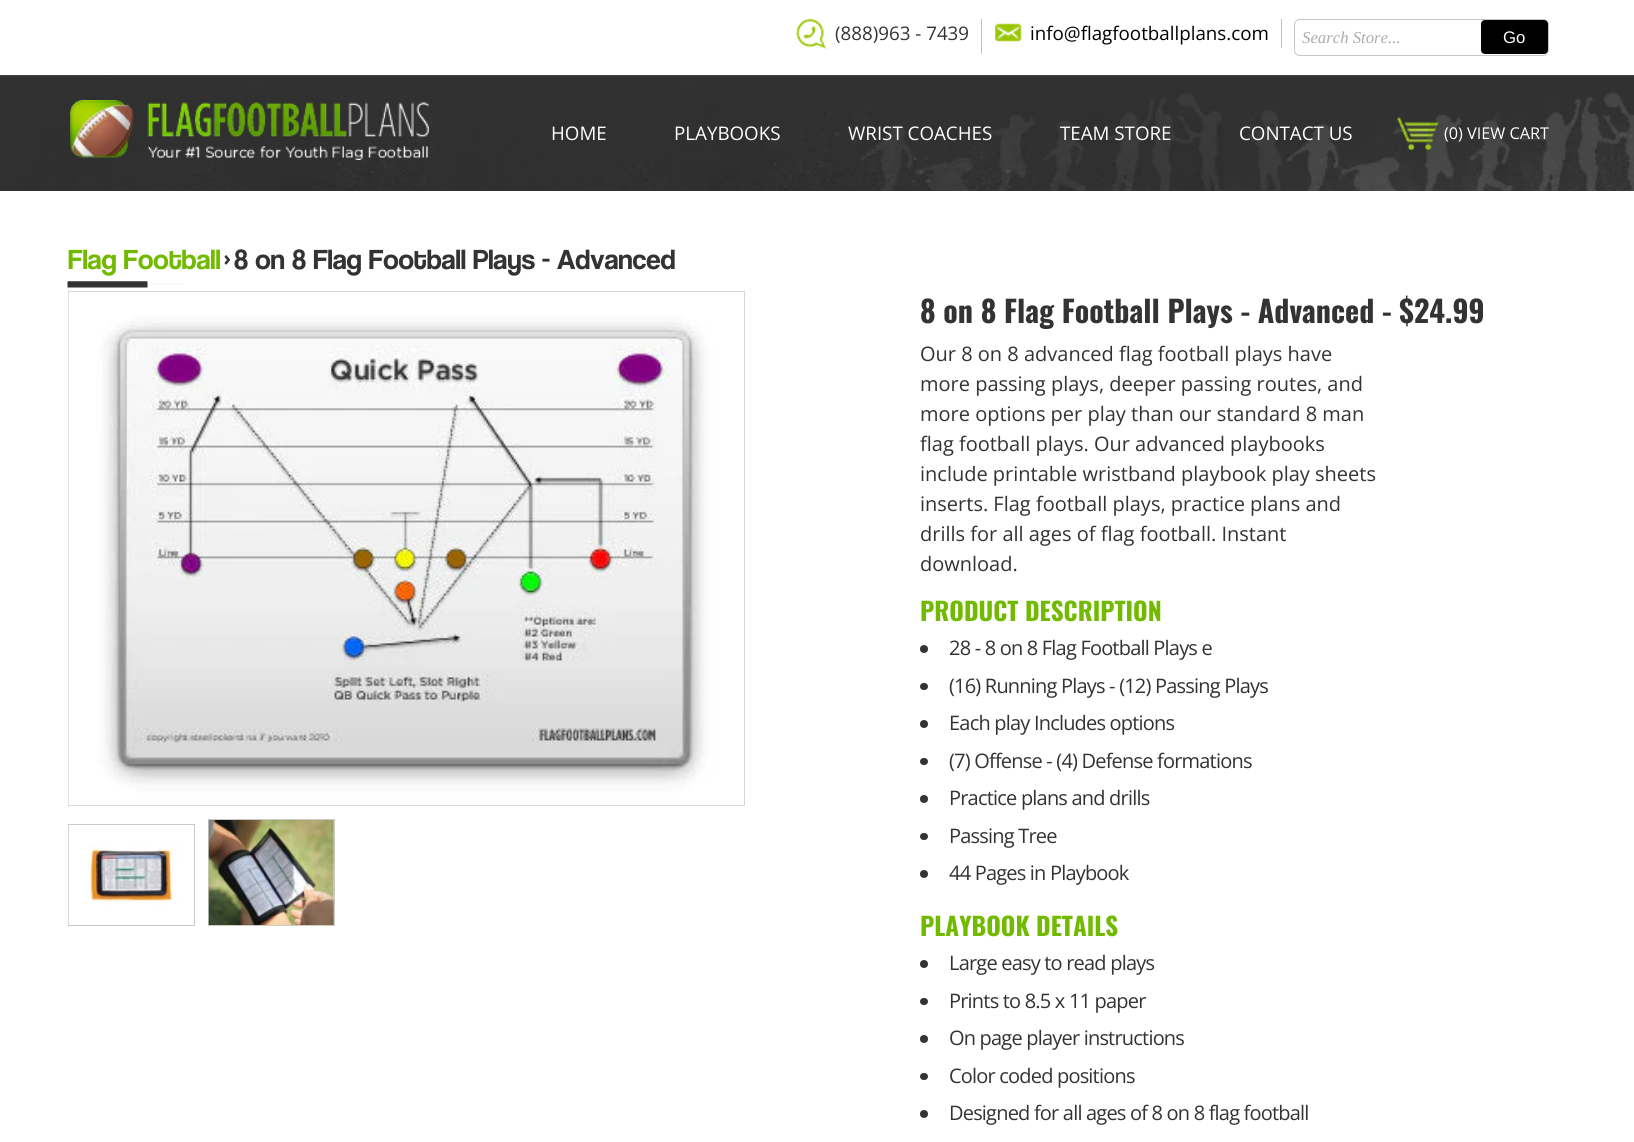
#include <cairo/cairo.h>
#include <math.h>
#include <stddef.h>


static void draw_spaced(cairo_t *cr, double x, double y, const char *s, double letter, double word) {
  cairo_move_to(cr, x, y);
  while (*s) {
    char ch[5] = {0};
    int n = 0;
    do ch[n++] = *s++; while ((*s & 0xC0) == 0x80);
    cairo_show_text(cr, ch);
    cairo_rel_move_to(cr, letter + word * (*ch == ' '), 0);
  }
}

static void rounded_rect(cairo_t *cr, double x, double y, double w, double h, double r) {
  cairo_new_sub_path(cr);
  cairo_arc(cr, x + w - r, y + h - r, r, 0, M_PI / 2);
  cairo_arc(cr, x + r, y + h - r, r, M_PI / 2, M_PI);
  cairo_arc(cr, x + r, y + r, r, M_PI, 1.5 * M_PI);
  cairo_arc(cr, x + w - r, y + r, r, 1.5 * M_PI, 2 * M_PI);
  cairo_close_path(cr);
}

static void draw_image(cairo_t *cr, const char *path, double x, double y, double w, double h) {
  cairo_surface_t *image = cairo_image_surface_create_from_png(path);
  cairo_save(cr);
  cairo_set_source_surface(cr, image, x, y);
  cairo_rectangle(cr, x, y, w, h);
  cairo_fill(cr);
  cairo_restore(cr);
  cairo_surface_destroy(image);
}

static void draw(cairo_t *cr) {
  cairo_set_source_rgb(cr, 1, 1, 1);
  cairo_paint(cr);
  cairo_set_source_rgb(cr, 192 / 255.0, 192 / 255.0, 192 / 255.0);
  cairo_rectangle(cr, 981, 19, 1, 35);
  cairo_fill(cr);
  draw_image(cr, "images/1.png", 796, 18, 31, 31);
  cairo_rectangle(cr, 1281, 19, 1, 29);
  cairo_fill(cr);
  draw_image(cr, "images/2.png", 995, 23, 27, 19);
  rounded_rect(cr, 1294.5, 19.5, 254, 36, 5.5);
  cairo_set_source_rgb(cr, 199 / 255.0, 199 / 255.0, 199 / 255.0);
  cairo_set_line_width(cr, 1);
  cairo_stroke(cr);
  cairo_set_source_rgb(cr, 0, 0, 0);
  rounded_rect(cr, 1481, 20, 67, 34, 4);
  cairo_fill(cr);
  draw_image(cr, "images/3.png", 0, 75, 1634, 116);
  draw_image(cr, "images/4.png", 70, 100, 360, 60);
  draw_image(cr, "images/5.png", 1397, 117, 42, 33);
  draw_image(cr, "images/6.png", 67, 281, 117, 7);
  cairo_rectangle(cr, 68.5, 291.5, 676, 514);
  cairo_set_source_rgb(cr, 212 / 255.0, 216 / 255.0, 209 / 255.0);
  cairo_stroke(cr);
  draw_image(cr, "images/7.png", 68, 292, 676, 513);
  cairo_rectangle(cr, 208.5, 819.5, 126, 106);
  cairo_set_source_rgb(cr, 201 / 255.0, 204 / 255.0, 197 / 255.0);
  cairo_stroke(cr);
  cairo_rectangle(cr, 68.5, 824.5, 126, 101);
  cairo_stroke(cr);
  draw_image(cr, "images/8.png", 208, 820, 126, 105);
  draw_image(cr, "images/9.png", 68, 825, 111, 100);
  cairo_set_source_rgb(cr, 51 / 255.0, 51 / 255.0, 51 / 255.0);
  cairo_arc(cr, 924, 649, 4, 0, 2 * M_PI);
  cairo_fill(cr);
  rounded_rect(cr, 920, 683, 8, 7, 3.5);
  cairo_fill(cr);
  cairo_arc(cr, 924, 724, 4, 0, 2 * M_PI);
  cairo_fill(cr);
  rounded_rect(cr, 920, 758, 8, 7, 3.5);
  cairo_fill(cr);
  cairo_arc(cr, 924, 799, 4, 0, 2 * M_PI);
  cairo_fill(cr);
  rounded_rect(cr, 920, 833, 8, 7, 3.5);
  cairo_fill(cr);
  cairo_arc(cr, 924, 874, 4, 0, 2 * M_PI);
  cairo_fill(cr);
  cairo_arc(cr, 924, 964, 4, 0, 2 * M_PI);
  cairo_fill(cr);
  rounded_rect(cr, 920, 998, 8, 7, 3.5);
  cairo_fill(cr);
  cairo_arc(cr, 924, 1039, 4, 0, 2 * M_PI);
  cairo_fill(cr);
  rounded_rect(cr, 920, 1073, 8, 7, 3.5);
  cairo_fill(cr);
  cairo_arc(cr, 924, 1114, 4, 0, 2 * M_PI);
  cairo_fill(cr);
  cairo_select_font_face(cr, "Open Sans", CAIRO_FONT_SLANT_NORMAL, CAIRO_FONT_WEIGHT_NORMAL);
  cairo_set_font_size(cr, 18.75);
  cairo_move_to(cr, 835, 40);
  cairo_show_text(cr, "(888)963 - 7439");
  cairo_set_source_rgb(cr, 0, 0, 0);
  cairo_move_to(cr, 1030, 40);
  cairo_show_text(cr, "info@flagfootballplans.com");
  cairo_select_font_face(cr, "Liberation Serif", CAIRO_FONT_SLANT_ITALIC, CAIRO_FONT_WEIGHT_NORMAL);
  cairo_set_font_size(cr, 16.75);
  cairo_set_source_rgb(cr, 172 / 255.0, 172 / 255.0, 172 / 255.0);
  cairo_move_to(cr, 1302, 43);
  cairo_show_text(cr, "Search Store...");
  cairo_select_font_face(cr, "Liberation Sans", CAIRO_FONT_SLANT_NORMAL, CAIRO_FONT_WEIGHT_NORMAL);
  cairo_set_source_rgb(cr, 1, 1, 1);
  cairo_move_to(cr, 1503, 43);
  cairo_show_text(cr, "Go");
  cairo_select_font_face(cr, "Open Sans", CAIRO_FONT_SLANT_NORMAL, CAIRO_FONT_WEIGHT_NORMAL);
  cairo_set_font_size(cr, 18.75);
  cairo_move_to(cr, 551, 140);
  cairo_show_text(cr, "HOME");
  cairo_move_to(cr, 674, 140);
  cairo_show_text(cr, "PLAYBOOKS");
  cairo_move_to(cr, 848, 140);
  cairo_show_text(cr, "WRIST COACHES");
  cairo_move_to(cr, 1060, 140);
  cairo_show_text(cr, "TEAM STORE");
  cairo_move_to(cr, 1239, 140);
  cairo_show_text(cr, "CONTACT US");
  cairo_set_font_size(cr, 16.25);
  cairo_move_to(cr, 1444, 139);
  cairo_show_text(cr, "(0) VIEW CART");
  cairo_select_font_face(cr, "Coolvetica", CAIRO_FONT_SLANT_NORMAL, CAIRO_FONT_WEIGHT_NORMAL);
  cairo_set_font_size(cr, 28.75);
  cairo_set_source_rgb(cr, 114 / 255.0, 186 / 255.0, 0);
  cairo_move_to(cr, 68, 269);
  cairo_show_text(cr, "Flag Football");
  cairo_set_source_rgb(cr, 51 / 255.0, 51 / 255.0, 51 / 255.0);
  cairo_move_to(cr, 224, 269);
  cairo_show_text(cr, "›");
  cairo_move_to(cr, 234, 269);
  cairo_show_text(cr, "8 on 8 Flag Football Plays - Advanced");
  cairo_select_font_face(cr, "Oswald", CAIRO_FONT_SLANT_NORMAL, CAIRO_FONT_WEIGHT_BOLD);
  cairo_set_font_size(cr, 30);
  cairo_move_to(cr, 920, 323);
  cairo_show_text(cr, "8 on 8 Flag Football Plays - Advanced - $24.99");
  cairo_select_font_face(cr, "Open Sans", CAIRO_FONT_SLANT_NORMAL, CAIRO_FONT_WEIGHT_NORMAL);
  cairo_set_font_size(cr, 20);
  cairo_move_to(cr, 920, 361);
  cairo_show_text(cr, "Our 8 on 8 advanced flag football plays have");
  cairo_move_to(cr, 920, 391);
  cairo_show_text(cr, "more passing plays, deeper passing routes, and");
  cairo_move_to(cr, 920, 421);
  cairo_show_text(cr, "more options per play than our standard 8 man");
  cairo_move_to(cr, 920, 451);
  cairo_show_text(cr, "flag football plays. Our advanced playbooks");
  cairo_move_to(cr, 920, 481);
  cairo_show_text(cr, "include printable wristband playbook play sheets");
  cairo_move_to(cr, 920, 511);
  cairo_show_text(cr, "inserts. Flag football plays, practice plans and");
  cairo_move_to(cr, 920, 541);
  cairo_show_text(cr, "drills for all ages of flag football. Instant");
  cairo_move_to(cr, 920, 571);
  cairo_show_text(cr, "download.");
  cairo_select_font_face(cr, "Oswald", CAIRO_FONT_SLANT_NORMAL, CAIRO_FONT_WEIGHT_BOLD);
  cairo_set_font_size(cr, 25);
  cairo_set_source_rgb(cr, 114 / 255.0, 186 / 255.0, 0);
  cairo_move_to(cr, 920, 621);
  cairo_show_text(cr, "PRODUCT DESCRIPTION");
  cairo_select_font_face(cr, "Open Sans", CAIRO_FONT_SLANT_NORMAL, CAIRO_FONT_WEIGHT_NORMAL);
  cairo_set_font_size(cr, 20);
  cairo_set_source_rgb(cr, 51 / 255.0, 51 / 255.0, 51 / 255.0);
  draw_spaced(cr, 949, 655, "28 - 8 on 8 Flag Football Plays e", -0.8, 0);
  draw_spaced(cr, 949, 693, "(16) Running Plays - (12) Passing Plays", -0.8, 0);
  draw_spaced(cr, 949, 730, "Each play Includes options", -0.8, 0);
  draw_spaced(cr, 949, 768, "(7) Offense - (4) Defense formations", -0.8, 0);
  draw_spaced(cr, 949, 805, "Practice plans and drills", -0.8, 0);
  draw_spaced(cr, 949, 843, "Passing Tree", -0.8, 0);
  draw_spaced(cr, 949, 880, "44 Pages in Playbook", -0.8, 0);
  cairo_select_font_face(cr, "Oswald", CAIRO_FONT_SLANT_NORMAL, CAIRO_FONT_WEIGHT_BOLD);
  cairo_set_font_size(cr, 25);
  cairo_set_source_rgb(cr, 114 / 255.0, 186 / 255.0, 0);
  cairo_move_to(cr, 920, 936);
  cairo_show_text(cr, "PLAYBOOK DETAILS");
  cairo_select_font_face(cr, "Open Sans", CAIRO_FONT_SLANT_NORMAL, CAIRO_FONT_WEIGHT_NORMAL);
  cairo_set_font_size(cr, 20);
  cairo_set_source_rgb(cr, 51 / 255.0, 51 / 255.0, 51 / 255.0);
  draw_spaced(cr, 949, 970, "Large easy to read plays", -0.8, 0);
  draw_spaced(cr, 949, 1008, "Prints to 8.5 x 11 paper", -0.8, 0);
  draw_spaced(cr, 949, 1045, "On page player instructions", -0.8, 0);
  draw_spaced(cr, 949, 1083, "Color coded positions", -0.8, 0);
  draw_spaced(cr, 949, 1120, "Designed for all ages of 8 on 8 flag football", -0.8, 0);
}

int main(void) {
  cairo_surface_t *surface = cairo_image_surface_create(CAIRO_FORMAT_RGB24, 1634, 1142);
  cairo_t *cr = cairo_create(surface);
  cairo_font_options_t *options = cairo_font_options_create();
  cairo_font_options_set_hint_metrics(options, CAIRO_HINT_METRICS_OFF);
  cairo_font_options_set_hint_style(options, CAIRO_HINT_STYLE_NONE);
  cairo_set_font_options(cr, options);
  cairo_set_miter_limit(cr, 4);
  draw(cr);
  cairo_surface_write_to_png(surface, "out.png");
  cairo_font_options_destroy(options);
  cairo_destroy(cr);
  cairo_surface_destroy(surface);
  return 0;
}
